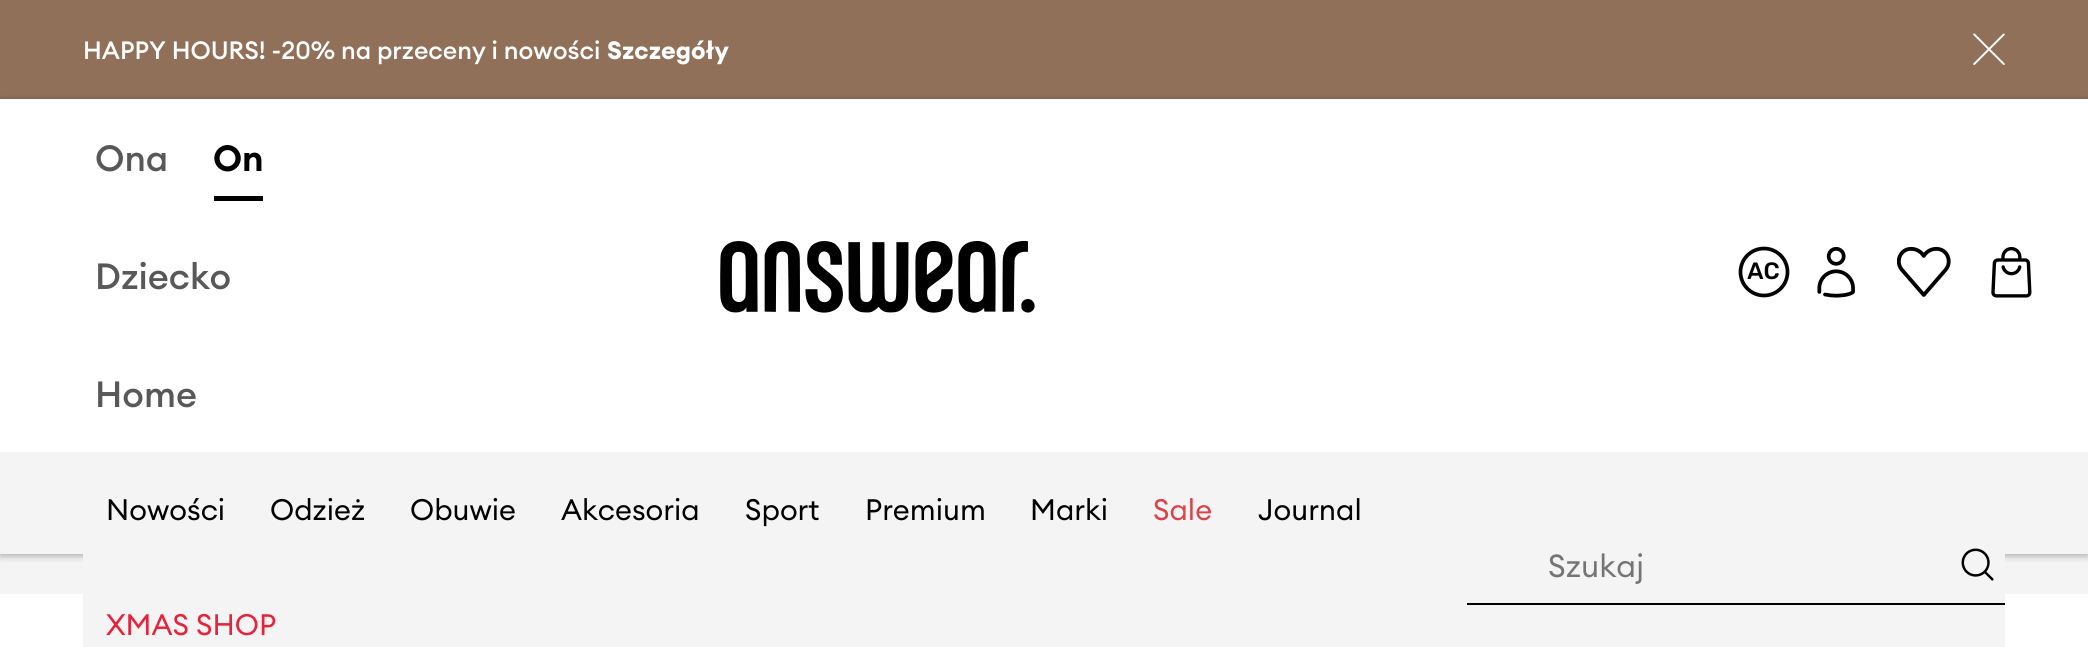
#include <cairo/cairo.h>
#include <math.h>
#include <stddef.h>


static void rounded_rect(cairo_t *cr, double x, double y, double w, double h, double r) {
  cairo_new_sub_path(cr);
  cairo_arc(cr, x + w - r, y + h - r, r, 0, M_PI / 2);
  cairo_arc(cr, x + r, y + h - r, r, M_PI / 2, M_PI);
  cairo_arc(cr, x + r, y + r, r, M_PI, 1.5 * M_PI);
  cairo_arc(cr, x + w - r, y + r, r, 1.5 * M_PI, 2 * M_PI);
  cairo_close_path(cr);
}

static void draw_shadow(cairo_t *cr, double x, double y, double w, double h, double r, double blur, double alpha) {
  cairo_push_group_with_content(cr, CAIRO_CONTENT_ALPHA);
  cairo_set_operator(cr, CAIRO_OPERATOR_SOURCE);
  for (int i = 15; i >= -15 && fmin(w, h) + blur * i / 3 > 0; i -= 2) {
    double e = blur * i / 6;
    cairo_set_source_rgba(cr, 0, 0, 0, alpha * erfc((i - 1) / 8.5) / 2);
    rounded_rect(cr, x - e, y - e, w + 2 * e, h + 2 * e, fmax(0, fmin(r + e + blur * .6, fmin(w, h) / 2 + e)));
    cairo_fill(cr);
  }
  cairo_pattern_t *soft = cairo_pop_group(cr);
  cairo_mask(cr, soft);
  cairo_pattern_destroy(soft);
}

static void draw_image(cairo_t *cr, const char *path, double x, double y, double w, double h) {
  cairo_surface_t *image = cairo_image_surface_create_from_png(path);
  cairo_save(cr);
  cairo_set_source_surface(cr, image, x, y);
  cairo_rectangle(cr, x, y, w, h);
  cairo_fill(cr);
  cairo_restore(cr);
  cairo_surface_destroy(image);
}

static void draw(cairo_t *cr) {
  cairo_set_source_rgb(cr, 1, 1, 1);
  cairo_paint(cr);
  cairo_set_source_rgb(cr, 144 / 255.0, 112 / 255.0, 88 / 255.0);
  cairo_rectangle(cr, 0, 0, 2088, 99);
  cairo_fill(cr);
  draw_image(cr, "images/1.png", 1973, 33, 32, 32);
  cairo_set_source_rgb(cr, 244 / 255.0, 244 / 255.0, 244 / 255.0);
  cairo_rectangle(cr, 0, 554, 2088, 40);
  cairo_fill(cr);
  cairo_set_source_rgb(cr, 0, 0, 0);
  draw_shadow(cr, 0, 101, 2088, 455, 0, 3.5, 0.3);
  cairo_set_source_rgb(cr, 1, 1, 1);
  cairo_rectangle(cr, 0, 99, 2088, 353);
  cairo_fill(cr);
  cairo_set_source_rgb(cr, 0, 0, 0);
  cairo_rectangle(cr, 214, 196, 49, 5);
  cairo_fill(cr);
  draw_image(cr, "images/2.png", 720, 241, 315, 72);
  draw_image(cr, "images/3.png", 1738, 246, 52, 52);
  draw_image(cr, "images/4.png", 1817, 246, 38, 52);
  draw_image(cr, "images/5.png", 1897, 246, 54, 51);
  draw_image(cr, "images/6.png", 1991, 246, 41, 52);
  cairo_set_source_rgb(cr, 244 / 255.0, 244 / 255.0, 244 / 255.0);
  cairo_rectangle(cr, 0, 452, 2088, 102);
  cairo_fill(cr);
  cairo_rectangle(cr, 83, 554, 1922, 93);
  cairo_fill(cr);
  cairo_set_source_rgb(cr, 0, 0, 0);
  cairo_rectangle(cr, 1467, 603, 538, 2);
  cairo_fill(cr);
  draw_image(cr, "images/7.png", 1961, 548, 33, 33);
  cairo_select_font_face(cr, "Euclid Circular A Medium", CAIRO_FONT_SLANT_NORMAL, CAIRO_FONT_WEIGHT_NORMAL);
  cairo_set_font_size(cr, 24.75);
  cairo_set_source_rgb(cr, 1, 1, 1);
  cairo_move_to(cr, 83, 59);
  cairo_show_text(cr, "HAPPY HOURS! -20% na przeceny i nowości");
  cairo_select_font_face(cr, "Euclid Circular A", CAIRO_FONT_SLANT_NORMAL, CAIRO_FONT_WEIGHT_BOLD);
  cairo_move_to(cr, 607, 59);
  cairo_show_text(cr, "Szczegóły");
  cairo_select_font_face(cr, "Euclid Circular A Medium", CAIRO_FONT_SLANT_NORMAL, CAIRO_FONT_WEIGHT_NORMAL);
  cairo_set_font_size(cr, 36);
  cairo_set_source_rgb(cr, 88 / 255.0, 88 / 255.0, 88 / 255.0);
  cairo_move_to(cr, 95, 171);
  cairo_show_text(cr, "Ona");
  cairo_select_font_face(cr, "Euclid Circular A SemiBold", CAIRO_FONT_SLANT_NORMAL, CAIRO_FONT_WEIGHT_NORMAL);
  cairo_set_source_rgb(cr, 0, 0, 0);
  cairo_move_to(cr, 213, 171);
  cairo_show_text(cr, "On");
  cairo_select_font_face(cr, "Euclid Circular A Medium", CAIRO_FONT_SLANT_NORMAL, CAIRO_FONT_WEIGHT_NORMAL);
  cairo_set_source_rgb(cr, 88 / 255.0, 88 / 255.0, 88 / 255.0);
  cairo_move_to(cr, 95, 289);
  cairo_show_text(cr, "Dziecko");
  cairo_move_to(cr, 95, 407);
  cairo_show_text(cr, "Home");
  cairo_select_font_face(cr, "Euclid Circular A", CAIRO_FONT_SLANT_NORMAL, CAIRO_FONT_WEIGHT_NORMAL);
  cairo_set_font_size(cr, 29.25);
  cairo_set_source_rgb(cr, 0, 0, 0);
  cairo_move_to(cr, 106, 520);
  cairo_show_text(cr, "Nowości");
  cairo_move_to(cr, 270, 520);
  cairo_show_text(cr, "Odzież");
  cairo_move_to(cr, 410, 520);
  cairo_show_text(cr, "Obuwie");
  cairo_move_to(cr, 561, 520);
  cairo_show_text(cr, "Akcesoria");
  cairo_move_to(cr, 745, 520);
  cairo_show_text(cr, "Sport");
  cairo_move_to(cr, 865, 520);
  cairo_show_text(cr, "Premium");
  cairo_move_to(cr, 1030, 520);
  cairo_show_text(cr, "Marki");
  cairo_set_source_rgb(cr, 218 / 255.0, 68 / 255.0, 72 / 255.0);
  cairo_move_to(cr, 1153, 520);
  cairo_show_text(cr, "Sale");
  cairo_set_source_rgb(cr, 0, 0, 0);
  cairo_move_to(cr, 1258, 520);
  cairo_show_text(cr, "Journal");
  cairo_set_source_rgb(cr, 229 / 255.0, 35 / 255.0, 58 / 255.0);
  cairo_move_to(cr, 106, 635);
  cairo_show_text(cr, "XMAS SHOP");
  cairo_set_font_size(cr, 31.5);
  cairo_set_source_rgb(cr, 117 / 255.0, 117 / 255.0, 117 / 255.0);
  cairo_move_to(cr, 1548, 577);
  cairo_show_text(cr, "Szukaj");
}

int main(void) {
  cairo_surface_t *surface = cairo_image_surface_create(CAIRO_FORMAT_RGB24, 2088, 647);
  cairo_t *cr = cairo_create(surface);
  cairo_font_options_t *options = cairo_font_options_create();
  cairo_font_options_set_hint_metrics(options, CAIRO_HINT_METRICS_OFF);
  cairo_font_options_set_hint_style(options, CAIRO_HINT_STYLE_NONE);
  cairo_set_font_options(cr, options);
  cairo_set_miter_limit(cr, 4);
  draw(cr);
  cairo_surface_write_to_png(surface, "out.png");
  cairo_font_options_destroy(options);
  cairo_destroy(cr);
  cairo_surface_destroy(surface);
  return 0;
}
